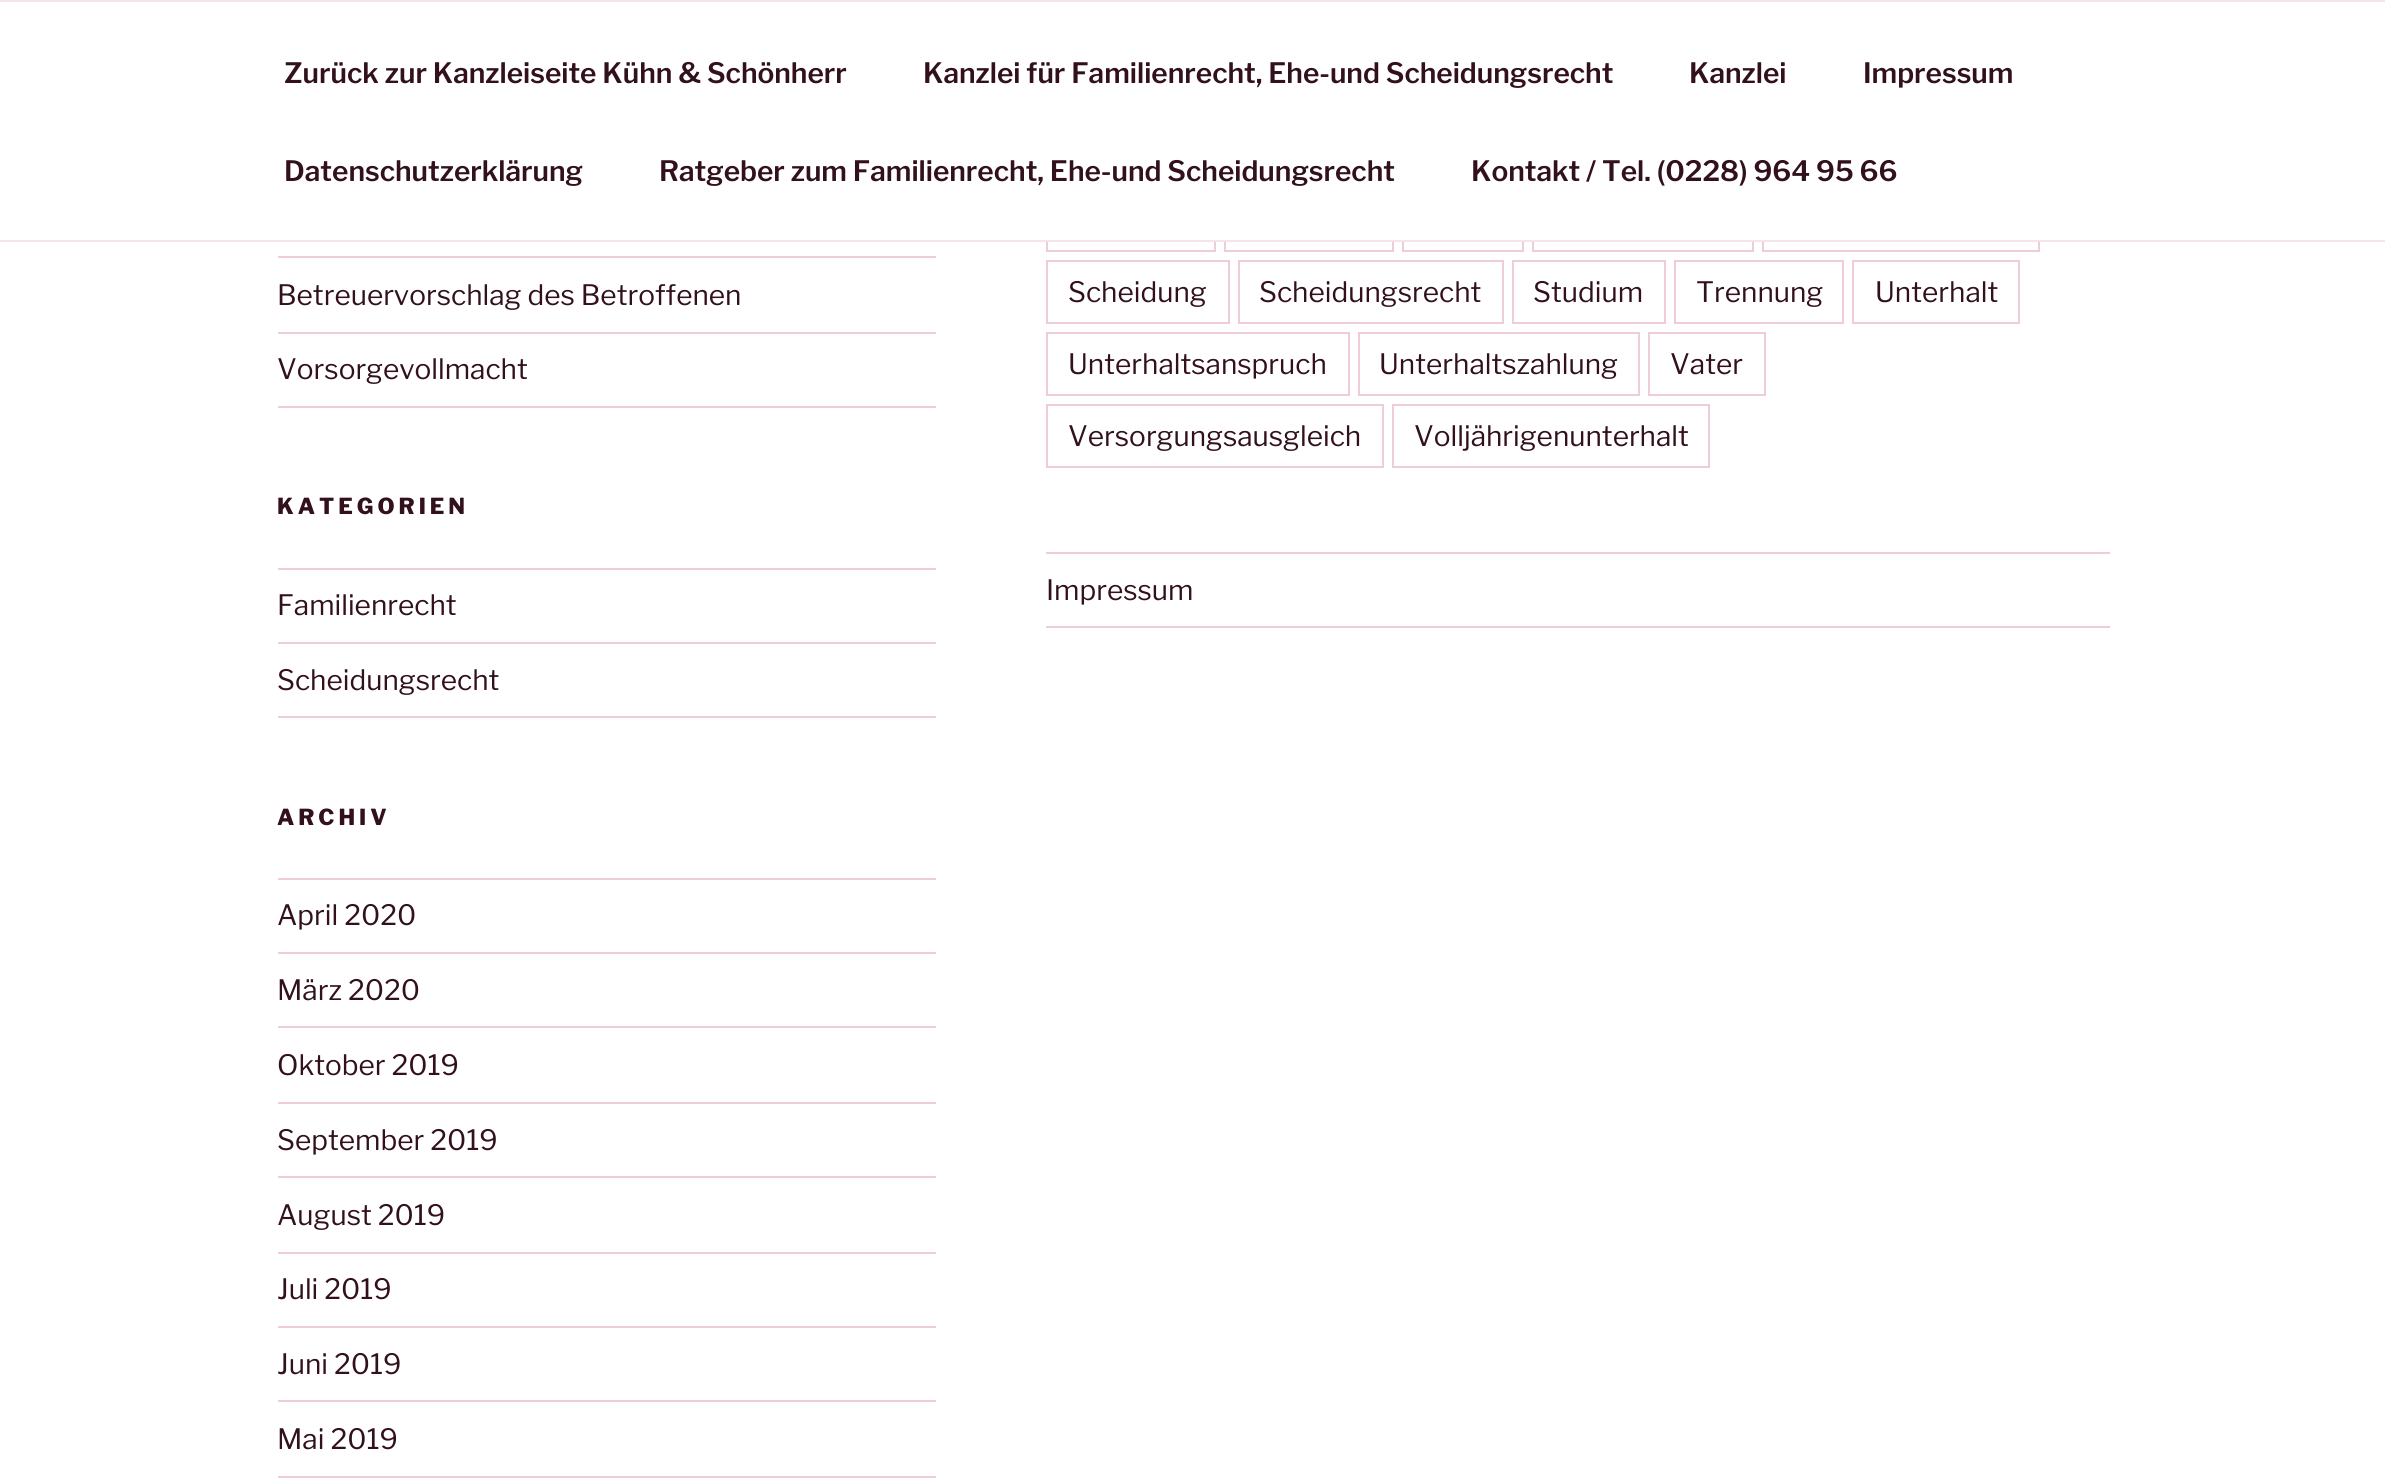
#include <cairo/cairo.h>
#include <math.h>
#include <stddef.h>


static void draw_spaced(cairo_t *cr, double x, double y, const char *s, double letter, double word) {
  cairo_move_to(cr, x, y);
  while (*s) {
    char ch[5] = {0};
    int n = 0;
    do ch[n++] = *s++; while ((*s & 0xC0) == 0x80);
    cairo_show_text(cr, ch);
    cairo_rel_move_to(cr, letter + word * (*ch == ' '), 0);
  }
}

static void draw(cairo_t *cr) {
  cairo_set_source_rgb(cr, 1, 1, 1);
  cairo_paint(cr);
  cairo_rectangle(cr, 1047, 189, 168, 62);
  cairo_set_source_rgb(cr, 238 / 255.0, 205 / 255.0, 217 / 255.0);
  cairo_stroke(cr);
  cairo_rectangle(cr, 1225, 189, 168, 62);
  cairo_stroke(cr);
  cairo_rectangle(cr, 1403, 189, 120, 62);
  cairo_stroke(cr);
  cairo_rectangle(cr, 1533, 189, 220, 62);
  cairo_stroke(cr);
  cairo_rectangle(cr, 1763, 189, 276, 62);
  cairo_stroke(cr);
  cairo_set_source_rgb(cr, 1, 1, 1);
  cairo_rectangle(cr, 1046, 188, 994, 52);
  cairo_fill(cr);
  cairo_set_source_rgb(cr, 246 / 255.0, 228 / 255.0, 235 / 255.0);
  cairo_rectangle(cr, 0, 0, 2385, 2);
  cairo_fill(cr);
  cairo_rectangle(cr, 0, 240, 2385, 2);
  cairo_fill(cr);
  cairo_set_source_rgb(cr, 238 / 255.0, 205 / 255.0, 217 / 255.0);
  cairo_rectangle(cr, 278, 256, 658, 2);
  cairo_fill(cr);
  cairo_rectangle(cr, 278, 332, 658, 2);
  cairo_fill(cr);
  cairo_rectangle(cr, 278, 406, 658, 2);
  cairo_fill(cr);
  cairo_rectangle(cr, 278, 568, 658, 2);
  cairo_fill(cr);
  cairo_rectangle(cr, 278, 642, 658, 2);
  cairo_fill(cr);
  cairo_rectangle(cr, 278, 716, 658, 2);
  cairo_fill(cr);
  cairo_rectangle(cr, 278, 878, 658, 2);
  cairo_fill(cr);
  cairo_rectangle(cr, 278, 952, 658, 2);
  cairo_fill(cr);
  cairo_rectangle(cr, 278, 1026, 658, 2);
  cairo_fill(cr);
  cairo_rectangle(cr, 278, 1102, 658, 2);
  cairo_fill(cr);
  cairo_rectangle(cr, 278, 1176, 658, 2);
  cairo_fill(cr);
  cairo_rectangle(cr, 278, 1252, 658, 2);
  cairo_fill(cr);
  cairo_rectangle(cr, 278, 1326, 658, 2);
  cairo_fill(cr);
  cairo_rectangle(cr, 278, 1400, 658, 2);
  cairo_fill(cr);
  cairo_rectangle(cr, 278, 1476, 658, 2);
  cairo_fill(cr);
  cairo_rectangle(cr, 1047, 261, 182, 62);
  cairo_stroke(cr);
  cairo_rectangle(cr, 1239, 261, 264, 62);
  cairo_stroke(cr);
  cairo_rectangle(cr, 1513, 261, 152, 62);
  cairo_stroke(cr);
  cairo_rectangle(cr, 1675, 261, 168, 62);
  cairo_stroke(cr);
  cairo_rectangle(cr, 1853, 261, 166, 62);
  cairo_stroke(cr);
  cairo_rectangle(cr, 1047, 333, 302, 62);
  cairo_stroke(cr);
  cairo_rectangle(cr, 1359, 333, 280, 62);
  cairo_stroke(cr);
  cairo_rectangle(cr, 1649, 333, 116, 62);
  cairo_stroke(cr);
  cairo_rectangle(cr, 1047, 405, 336, 62);
  cairo_stroke(cr);
  cairo_rectangle(cr, 1393, 405, 316, 62);
  cairo_stroke(cr);
  cairo_rectangle(cr, 1046, 552, 1064, 2);
  cairo_fill(cr);
  cairo_rectangle(cr, 1046, 626, 1064, 2);
  cairo_fill(cr);
  cairo_select_font_face(cr, "Libre Franklin SemiBold", CAIRO_FONT_SLANT_NORMAL, CAIRO_FONT_WEIGHT_NORMAL);
  cairo_set_font_size(cr, 28);
  cairo_set_source_rgb(cr, 50 / 255.0, 17 / 255.0, 29 / 255.0);
  cairo_move_to(cr, 284, 83);
  cairo_show_text(cr, "Zurück zur Kanzleiseite Kühn & Schönherr");
  cairo_move_to(cr, 923, 83);
  cairo_show_text(cr, "Kanzlei für Familienrecht, Ehe-und Scheidungsrecht");
  cairo_move_to(cr, 1689, 83);
  cairo_show_text(cr, "Kanzlei");
  cairo_move_to(cr, 1863, 83);
  cairo_show_text(cr, "Impressum");
  cairo_move_to(cr, 284, 181);
  cairo_show_text(cr, "Datenschutzerklärung");
  cairo_move_to(cr, 659, 181);
  cairo_show_text(cr, "Ratgeber zum Familienrecht, Ehe-und Scheidungsrecht");
  cairo_move_to(cr, 1471, 181);
  cairo_show_text(cr, "Kontakt / Tel. (0228) 964 95 66");
  cairo_select_font_face(cr, "Libre Franklin", CAIRO_FONT_SLANT_NORMAL, CAIRO_FONT_WEIGHT_NORMAL);
  cairo_move_to(cr, 277, 305);
  cairo_show_text(cr, "Betreuervorschlag des Betroffenen");
  cairo_move_to(cr, 277, 379);
  cairo_show_text(cr, "Vorsorgevollmacht");
  cairo_select_font_face(cr, "Libre Franklin ExtraBold", CAIRO_FONT_SLANT_NORMAL, CAIRO_FONT_WEIGHT_NORMAL);
  cairo_set_font_size(cr, 22);
  draw_spaced(cr, 277, 514, "KATEGORIEN", 4, 0);
  cairo_select_font_face(cr, "Libre Franklin", CAIRO_FONT_SLANT_NORMAL, CAIRO_FONT_WEIGHT_NORMAL);
  cairo_set_font_size(cr, 28);
  cairo_move_to(cr, 277, 615);
  cairo_show_text(cr, "Familienrecht");
  cairo_move_to(cr, 277, 690);
  cairo_show_text(cr, "Scheidungsrecht");
  cairo_select_font_face(cr, "Libre Franklin ExtraBold", CAIRO_FONT_SLANT_NORMAL, CAIRO_FONT_WEIGHT_NORMAL);
  cairo_set_font_size(cr, 22);
  draw_spaced(cr, 277, 825, "ARCHIV", 4, 0);
  cairo_select_font_face(cr, "Libre Franklin", CAIRO_FONT_SLANT_NORMAL, CAIRO_FONT_WEIGHT_NORMAL);
  cairo_set_font_size(cr, 28);
  cairo_move_to(cr, 277, 925);
  cairo_show_text(cr, "April 2020");
  cairo_move_to(cr, 277, 1000);
  cairo_show_text(cr, "März 2020");
  cairo_move_to(cr, 277, 1075);
  cairo_show_text(cr, "Oktober 2019");
  cairo_move_to(cr, 277, 1150);
  cairo_show_text(cr, "September 2019");
  cairo_move_to(cr, 277, 1225);
  cairo_show_text(cr, "August 2019");
  cairo_move_to(cr, 277, 1299);
  cairo_show_text(cr, "Juli 2019");
  cairo_move_to(cr, 277, 1374);
  cairo_show_text(cr, "Juni 2019");
  cairo_move_to(cr, 277, 1449);
  cairo_show_text(cr, "Mai 2019");
  cairo_move_to(cr, 1068, 302);
  cairo_show_text(cr, "Scheidung");
  cairo_move_to(cr, 1259, 302);
  cairo_show_text(cr, "Scheidungsrecht");
  cairo_move_to(cr, 1533, 302);
  cairo_show_text(cr, "Studium");
  cairo_move_to(cr, 1696, 302);
  cairo_show_text(cr, "Trennung");
  cairo_move_to(cr, 1875, 302);
  cairo_show_text(cr, "Unterhalt");
  cairo_move_to(cr, 1068, 374);
  cairo_show_text(cr, "Unterhaltsanspruch");
  cairo_move_to(cr, 1379, 374);
  cairo_show_text(cr, "Unterhaltszahlung");
  cairo_move_to(cr, 1670, 374);
  cairo_show_text(cr, "Vater");
  cairo_move_to(cr, 1068, 446);
  cairo_show_text(cr, "Versorgungsausgleich");
  cairo_move_to(cr, 1414, 446);
  cairo_show_text(cr, "Volljährigenunterhalt");
  cairo_move_to(cr, 1046, 600);
  cairo_show_text(cr, "Impressum");
}

int main(void) {
  cairo_surface_t *surface = cairo_image_surface_create(CAIRO_FORMAT_RGB24, 2385, 1483);
  cairo_t *cr = cairo_create(surface);
  cairo_font_options_t *options = cairo_font_options_create();
  cairo_font_options_set_hint_metrics(options, CAIRO_HINT_METRICS_OFF);
  cairo_font_options_set_hint_style(options, CAIRO_HINT_STYLE_NONE);
  cairo_set_font_options(cr, options);
  cairo_set_miter_limit(cr, 4);
  draw(cr);
  cairo_surface_write_to_png(surface, "out.png");
  cairo_font_options_destroy(options);
  cairo_destroy(cr);
  cairo_surface_destroy(surface);
  return 0;
}
